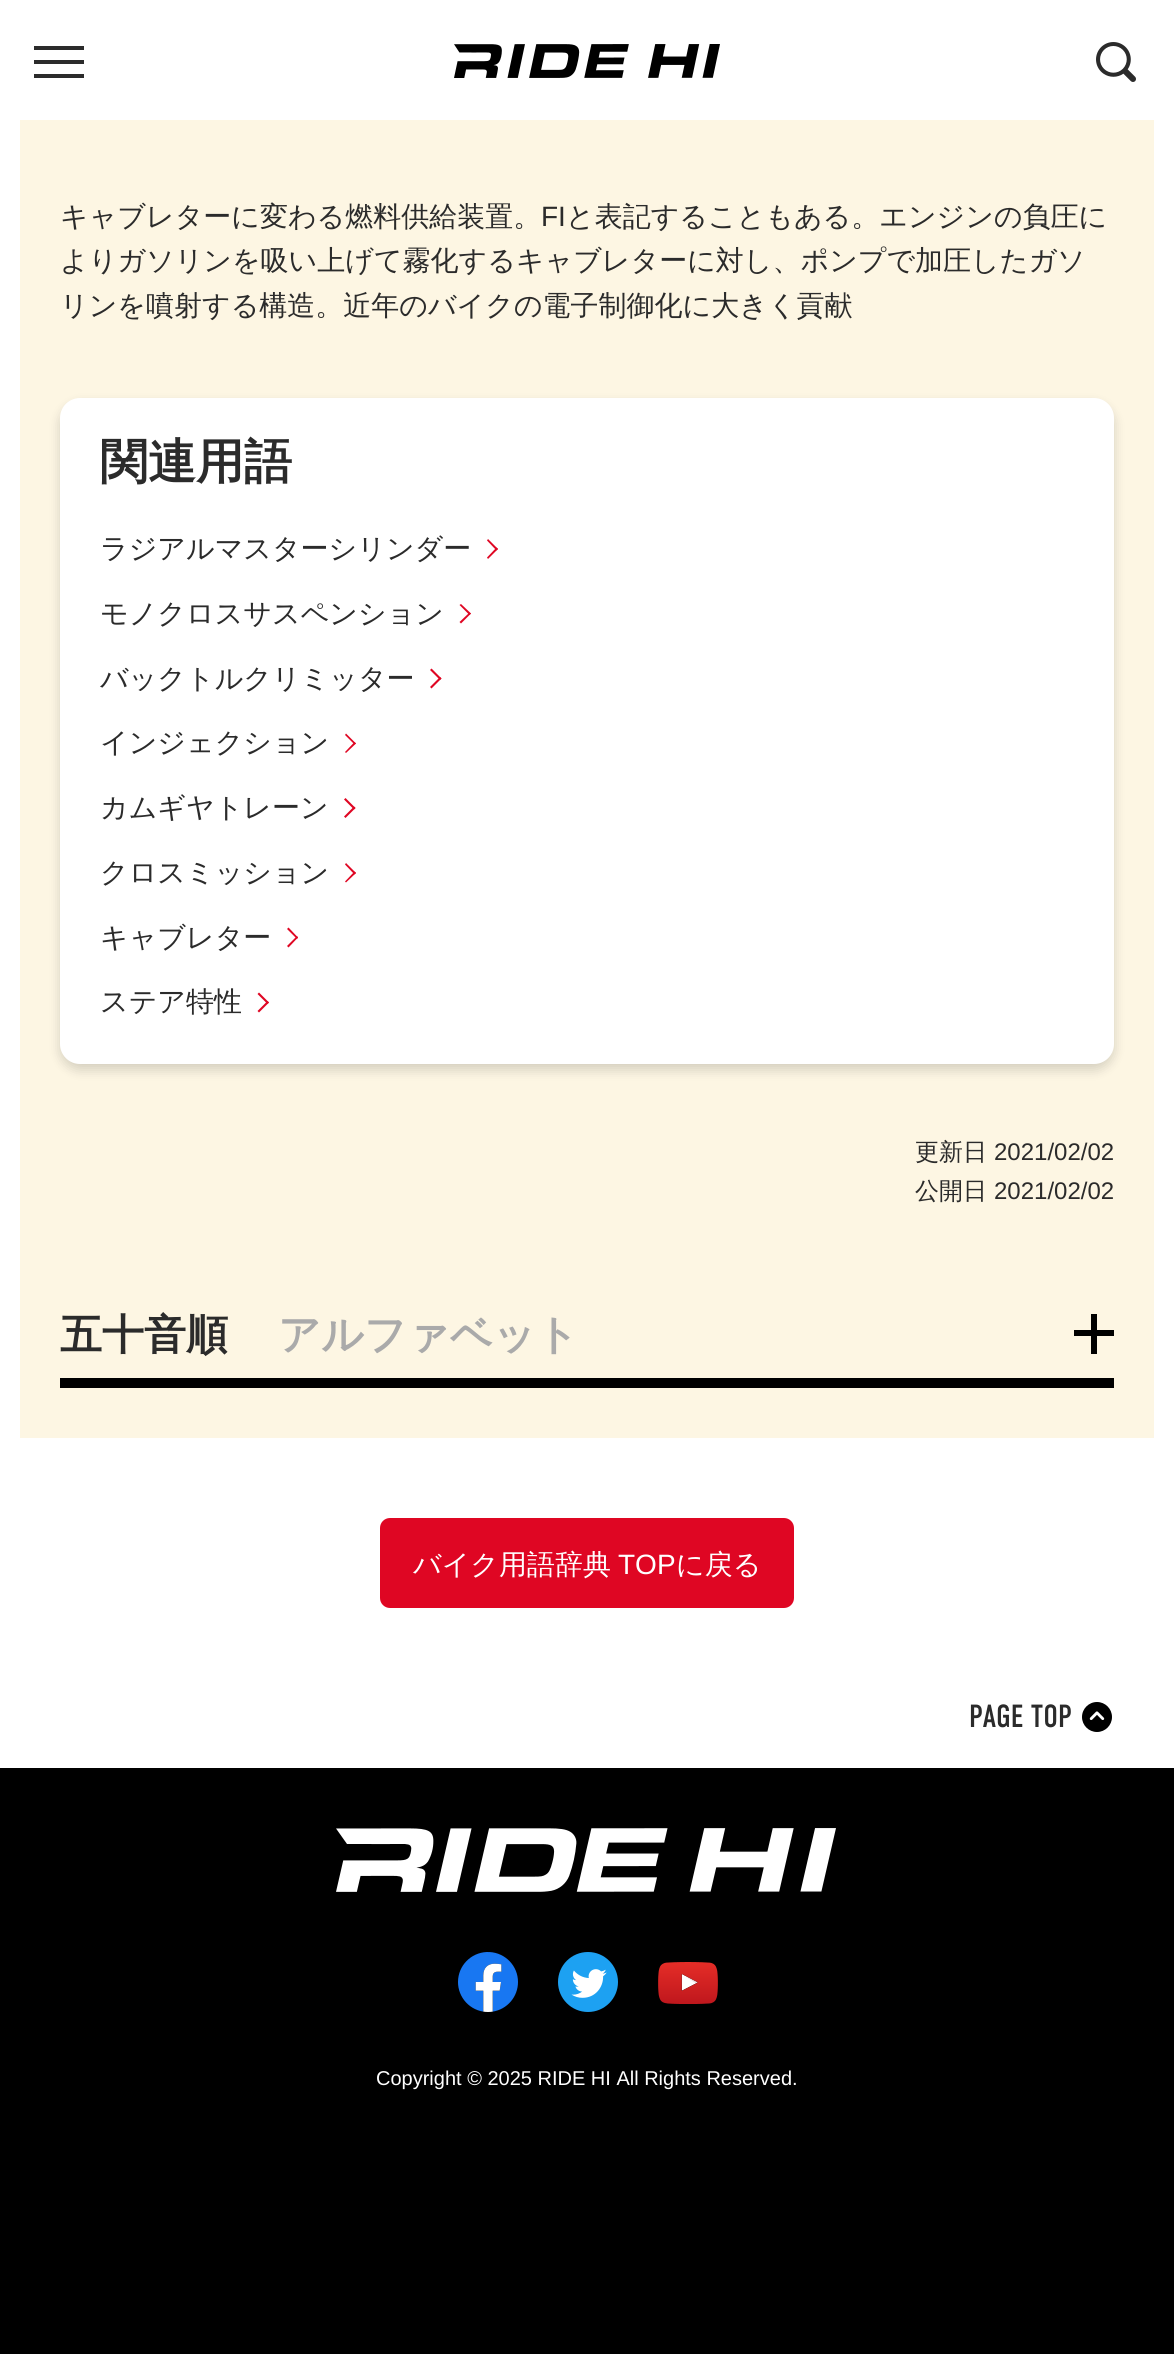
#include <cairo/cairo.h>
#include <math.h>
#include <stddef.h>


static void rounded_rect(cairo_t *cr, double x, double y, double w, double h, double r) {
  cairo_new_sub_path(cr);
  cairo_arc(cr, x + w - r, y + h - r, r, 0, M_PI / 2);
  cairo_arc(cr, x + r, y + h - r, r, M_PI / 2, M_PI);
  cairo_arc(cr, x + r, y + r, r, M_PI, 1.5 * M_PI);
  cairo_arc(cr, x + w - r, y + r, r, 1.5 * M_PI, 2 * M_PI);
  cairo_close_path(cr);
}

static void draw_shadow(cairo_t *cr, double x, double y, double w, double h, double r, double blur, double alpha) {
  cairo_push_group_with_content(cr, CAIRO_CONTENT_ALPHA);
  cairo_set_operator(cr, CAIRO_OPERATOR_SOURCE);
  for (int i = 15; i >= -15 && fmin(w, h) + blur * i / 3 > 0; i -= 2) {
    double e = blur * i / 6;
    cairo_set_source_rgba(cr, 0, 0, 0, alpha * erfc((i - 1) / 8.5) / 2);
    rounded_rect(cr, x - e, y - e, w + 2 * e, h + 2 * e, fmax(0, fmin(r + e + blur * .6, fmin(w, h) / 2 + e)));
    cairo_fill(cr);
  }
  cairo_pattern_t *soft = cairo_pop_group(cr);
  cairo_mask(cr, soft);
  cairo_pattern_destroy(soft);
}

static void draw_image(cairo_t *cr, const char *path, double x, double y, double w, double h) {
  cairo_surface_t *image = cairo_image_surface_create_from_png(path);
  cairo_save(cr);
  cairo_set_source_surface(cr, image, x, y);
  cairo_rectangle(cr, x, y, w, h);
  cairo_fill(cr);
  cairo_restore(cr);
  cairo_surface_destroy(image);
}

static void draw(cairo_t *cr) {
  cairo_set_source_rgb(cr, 1, 1, 1);
  cairo_paint(cr);
  cairo_set_source_rgb(cr, 43 / 255.0, 43 / 255.0, 43 / 255.0);
  cairo_rectangle(cr, 34, 46, 50, 4);
  cairo_fill(cr);
  cairo_rectangle(cr, 34, 60, 50, 4);
  cairo_fill(cr);
  cairo_rectangle(cr, 34, 74, 50, 4);
  cairo_fill(cr);
  draw_image(cr, "images/1.png", 454, 44, 266, 34);
  draw_image(cr, "images/2.png", 1096, 42, 40, 40);
  cairo_set_source_rgb(cr, 253 / 255.0, 246 / 255.0, 227 / 255.0);
  cairo_rectangle(cr, 20, 120, 1134, 1318);
  cairo_fill(cr);
  cairo_set_source_rgb(cr, 0, 0, 0);
  draw_shadow(cr, 60, 404, 1054, 666, 20, 6, 0.16);
  cairo_set_source_rgb(cr, 1, 1, 1);
  rounded_rect(cr, 60, 398, 1054, 666, 20);
  cairo_fill(cr);
  cairo_set_source_rgb(cr, 223 / 255.0, 6 / 255.0, 35 / 255.0);
  cairo_new_path(cr);
  cairo_move_to(cr, 488, 539);
  cairo_line_to(cr, 498, 549);
  cairo_line_to(cr, 496.5, 550.5);
  cairo_line_to(cr, 487, 540.5);
  cairo_close_path(cr);
  cairo_fill(cr);
  cairo_new_path(cr);
  cairo_move_to(cr, 496.5, 547.5);
  cairo_line_to(cr, 498, 549);
  cairo_line_to(cr, 488, 559);
  cairo_line_to(cr, 487, 557.5);
  cairo_close_path(cr);
  cairo_fill(cr);
  cairo_new_path(cr);
  cairo_move_to(cr, 461, 604);
  cairo_line_to(cr, 471, 613.5);
  cairo_line_to(cr, 469.5, 615);
  cairo_line_to(cr, 459.5, 605);
  cairo_close_path(cr);
  cairo_fill(cr);
  cairo_new_path(cr);
  cairo_move_to(cr, 469.5, 612.5);
  cairo_line_to(cr, 471, 613.5);
  cairo_line_to(cr, 461, 623.5);
  cairo_line_to(cr, 459.5, 622);
  cairo_close_path(cr);
  cairo_fill(cr);
  cairo_new_path(cr);
  cairo_move_to(cr, 431.5, 668.5);
  cairo_line_to(cr, 441.5, 678.5);
  cairo_line_to(cr, 440, 680);
  cairo_line_to(cr, 430, 670);
  cairo_close_path(cr);
  cairo_fill(cr);
  cairo_new_path(cr);
  cairo_move_to(cr, 440, 677);
  cairo_line_to(cr, 441.5, 678.5);
  cairo_line_to(cr, 431.5, 688.5);
  cairo_line_to(cr, 430, 687);
  cairo_close_path(cr);
  cairo_fill(cr);
  cairo_new_path(cr);
  cairo_move_to(cr, 346, 733.5);
  cairo_line_to(cr, 356, 743.5);
  cairo_line_to(cr, 354.5, 744.5);
  cairo_line_to(cr, 345, 735);
  cairo_close_path(cr);
  cairo_fill(cr);
  cairo_new_path(cr);
  cairo_move_to(cr, 354.5, 742);
  cairo_line_to(cr, 356, 743.5);
  cairo_line_to(cr, 346, 753);
  cairo_line_to(cr, 345, 752);
  cairo_close_path(cr);
  cairo_fill(cr);
  cairo_new_path(cr);
  cairo_move_to(cr, 345.5, 798);
  cairo_line_to(cr, 355.5, 808);
  cairo_line_to(cr, 354, 809.5);
  cairo_line_to(cr, 344, 799.5);
  cairo_close_path(cr);
  cairo_fill(cr);
  cairo_new_path(cr);
  cairo_move_to(cr, 354, 806.5);
  cairo_line_to(cr, 355.5, 808);
  cairo_line_to(cr, 345.5, 818);
  cairo_line_to(cr, 344, 816.5);
  cairo_close_path(cr);
  cairo_fill(cr);
  cairo_new_path(cr);
  cairo_move_to(cr, 346, 863);
  cairo_line_to(cr, 356, 873);
  cairo_line_to(cr, 354.5, 874.5);
  cairo_line_to(cr, 345, 864.5);
  cairo_close_path(cr);
  cairo_fill(cr);
  cairo_new_path(cr);
  cairo_move_to(cr, 354.5, 871.5);
  cairo_line_to(cr, 356, 873);
  cairo_line_to(cr, 346, 882.5);
  cairo_line_to(cr, 345, 881.5);
  cairo_close_path(cr);
  cairo_fill(cr);
  cairo_new_path(cr);
  cairo_move_to(cr, 288.5, 927.5);
  cairo_line_to(cr, 298, 937.5);
  cairo_line_to(cr, 297, 939);
  cairo_line_to(cr, 287, 929);
  cairo_close_path(cr);
  cairo_fill(cr);
  cairo_new_path(cr);
  cairo_move_to(cr, 297, 936);
  cairo_line_to(cr, 298, 937.5);
  cairo_line_to(cr, 288.5, 947.5);
  cairo_line_to(cr, 287, 946);
  cairo_close_path(cr);
  cairo_fill(cr);
  cairo_new_path(cr);
  cairo_move_to(cr, 259, 992.5);
  cairo_line_to(cr, 269, 1002.5);
  cairo_line_to(cr, 267.5, 1004);
  cairo_line_to(cr, 257.5, 994);
  cairo_close_path(cr);
  cairo_fill(cr);
  cairo_new_path(cr);
  cairo_move_to(cr, 267.5, 1001);
  cairo_line_to(cr, 269, 1002.5);
  cairo_line_to(cr, 259, 1012.5);
  cairo_line_to(cr, 257.5, 1011);
  cairo_close_path(cr);
  cairo_fill(cr);
  cairo_set_source_rgb(cr, 0, 0, 0);
  cairo_rectangle(cr, 1074, 1330, 40, 6);
  cairo_fill(cr);
  cairo_rectangle(cr, 1091, 1314, 6, 40);
  cairo_fill(cr);
  cairo_rectangle(cr, 60, 1378, 1054, 10);
  cairo_fill(cr);
  cairo_set_source_rgb(cr, 223 / 255.0, 6 / 255.0, 35 / 255.0);
  rounded_rect(cr, 382, 1520, 410, 86, 8);
  cairo_fill_preserve(cr);
  cairo_set_line_width(cr, 4);
  cairo_stroke(cr);
  cairo_set_source_rgb(cr, 0, 0, 0);
  cairo_rectangle(cr, 0, 1768, 1174, 586);
  cairo_fill(cr);
  draw_image(cr, "images/3.png", 1082, 1702, 30, 30);
  draw_image(cr, "images/4.png", 336, 1828, 500, 64);
  draw_image(cr, "images/5.png", 458, 1952, 60, 60);
  draw_image(cr, "images/6.png", 558, 1952, 60, 60);
  draw_image(cr, "images/7.png", 658, 1962, 60, 42);
  cairo_select_font_face(cr, "WenQuanYi Zen Hei Medium", CAIRO_FONT_SLANT_NORMAL, CAIRO_FONT_WEIGHT_NORMAL);
  cairo_set_font_size(cr, 28);
  cairo_set_source_rgb(cr, 43 / 255.0, 43 / 255.0, 43 / 255.0);
  cairo_move_to(cr, 60, 226);
  cairo_show_text(cr, "キャブレターに変わる燃料供給装置。");
  cairo_select_font_face(cr, "Liberation Sans", CAIRO_FONT_SLANT_NORMAL, CAIRO_FONT_WEIGHT_NORMAL);
  cairo_move_to(cr, 541, 226);
  cairo_show_text(cr, "FI");
  cairo_select_font_face(cr, "WenQuanYi Zen Hei Medium", CAIRO_FONT_SLANT_NORMAL, CAIRO_FONT_WEIGHT_NORMAL);
  cairo_move_to(cr, 566, 226);
  cairo_show_text(cr, "と表記することもある。エンジンの負圧に");
  cairo_move_to(cr, 60, 270);
  cairo_show_text(cr, "よりガソリンを吸い上げて霧化するキャブレターに対し、ポンプで加圧したガソ");
  cairo_move_to(cr, 60, 315);
  cairo_show_text(cr, "リンを噴射する構造。近年のバイクの電子制御化に大きく貢献");
  cairo_select_font_face(cr, "WenQuanYi Zen Hei", CAIRO_FONT_SLANT_NORMAL, CAIRO_FONT_WEIGHT_BOLD);
  cairo_set_font_size(cr, 48);
  cairo_move_to(cr, 100, 478);
  cairo_show_text(cr, "関連用語");
  cairo_select_font_face(cr, "WenQuanYi Zen Hei Medium", CAIRO_FONT_SLANT_NORMAL, CAIRO_FONT_WEIGHT_NORMAL);
  cairo_set_font_size(cr, 28);
  cairo_move_to(cr, 100, 558);
  cairo_show_text(cr, "ラジアルマスターシリンダー");
  cairo_move_to(cr, 100, 623);
  cairo_show_text(cr, "モノクロスサスペンション");
  cairo_move_to(cr, 100, 688);
  cairo_show_text(cr, "バックトルクリミッター");
  cairo_move_to(cr, 100, 752);
  cairo_show_text(cr, "インジェクション");
  cairo_move_to(cr, 100, 817);
  cairo_show_text(cr, "カムギヤトレーン");
  cairo_move_to(cr, 100, 882);
  cairo_show_text(cr, "クロスミッション");
  cairo_move_to(cr, 100, 947);
  cairo_show_text(cr, "キャブレター");
  cairo_move_to(cr, 100, 1011);
  cairo_show_text(cr, "ステア特性");
  cairo_set_font_size(cr, 24);
  cairo_move_to(cr, 915, 1160);
  cairo_show_text(cr, "更新日");
  cairo_select_font_face(cr, "Liberation Sans", CAIRO_FONT_SLANT_NORMAL, CAIRO_FONT_WEIGHT_NORMAL);
  cairo_move_to(cr, 994, 1160);
  cairo_show_text(cr, "2021/02/02");
  cairo_select_font_face(cr, "WenQuanYi Zen Hei Medium", CAIRO_FONT_SLANT_NORMAL, CAIRO_FONT_WEIGHT_NORMAL);
  cairo_move_to(cr, 915, 1199);
  cairo_show_text(cr, "公開日");
  cairo_select_font_face(cr, "Liberation Sans", CAIRO_FONT_SLANT_NORMAL, CAIRO_FONT_WEIGHT_NORMAL);
  cairo_move_to(cr, 994, 1199);
  cairo_show_text(cr, "2021/02/02");
  cairo_select_font_face(cr, "WenQuanYi Zen Hei", CAIRO_FONT_SLANT_NORMAL, CAIRO_FONT_WEIGHT_BOLD);
  cairo_set_font_size(cr, 42);
  cairo_move_to(cr, 60, 1349);
  cairo_show_text(cr, "五十音順");
  cairo_set_source_rgb(cr, 170 / 255.0, 170 / 255.0, 170 / 255.0);
  cairo_move_to(cr, 278, 1349);
  cairo_show_text(cr, "アルファベット");
  cairo_select_font_face(cr, "WenQuanYi Zen Hei Medium", CAIRO_FONT_SLANT_NORMAL, CAIRO_FONT_WEIGHT_NORMAL);
  cairo_set_font_size(cr, 28);
  cairo_set_source_rgb(cr, 1, 1, 1);
  cairo_move_to(cr, 413, 1574);
  cairo_show_text(cr, "バイク用語辞典");
  cairo_select_font_face(cr, "Liberation Sans", CAIRO_FONT_SLANT_NORMAL, CAIRO_FONT_WEIGHT_NORMAL);
  cairo_move_to(cr, 618, 1574);
  cairo_show_text(cr, "TOP");
  cairo_select_font_face(cr, "WenQuanYi Zen Hei Medium", CAIRO_FONT_SLANT_NORMAL, CAIRO_FONT_WEIGHT_NORMAL);
  cairo_move_to(cr, 676, 1574);
  cairo_show_text(cr, "に戻る");
  cairo_select_font_face(cr, "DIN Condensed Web", CAIRO_FONT_SLANT_NORMAL, CAIRO_FONT_WEIGHT_NORMAL);
  cairo_set_font_size(cr, 32);
  cairo_set_source_rgb(cr, 43 / 255.0, 43 / 255.0, 43 / 255.0);
  cairo_move_to(cr, 969, 1727);
  cairo_show_text(cr, "PAGE TOP");
  cairo_select_font_face(cr, "Liberation Sans", CAIRO_FONT_SLANT_NORMAL, CAIRO_FONT_WEIGHT_NORMAL);
  cairo_set_font_size(cr, 20);
  cairo_set_source_rgb(cr, 1, 1, 1);
  cairo_move_to(cr, 376, 2085);
  cairo_show_text(cr, "Copyright © 2025 RIDE HI All Rights Reserved.");
}

int main(void) {
  cairo_surface_t *surface = cairo_image_surface_create(CAIRO_FORMAT_RGB24, 1174, 2354);
  cairo_t *cr = cairo_create(surface);
  cairo_font_options_t *options = cairo_font_options_create();
  cairo_font_options_set_hint_metrics(options, CAIRO_HINT_METRICS_OFF);
  cairo_font_options_set_hint_style(options, CAIRO_HINT_STYLE_NONE);
  cairo_set_font_options(cr, options);
  cairo_set_miter_limit(cr, 4);
  draw(cr);
  cairo_surface_write_to_png(surface, "out.png");
  cairo_font_options_destroy(options);
  cairo_destroy(cr);
  cairo_surface_destroy(surface);
  return 0;
}
